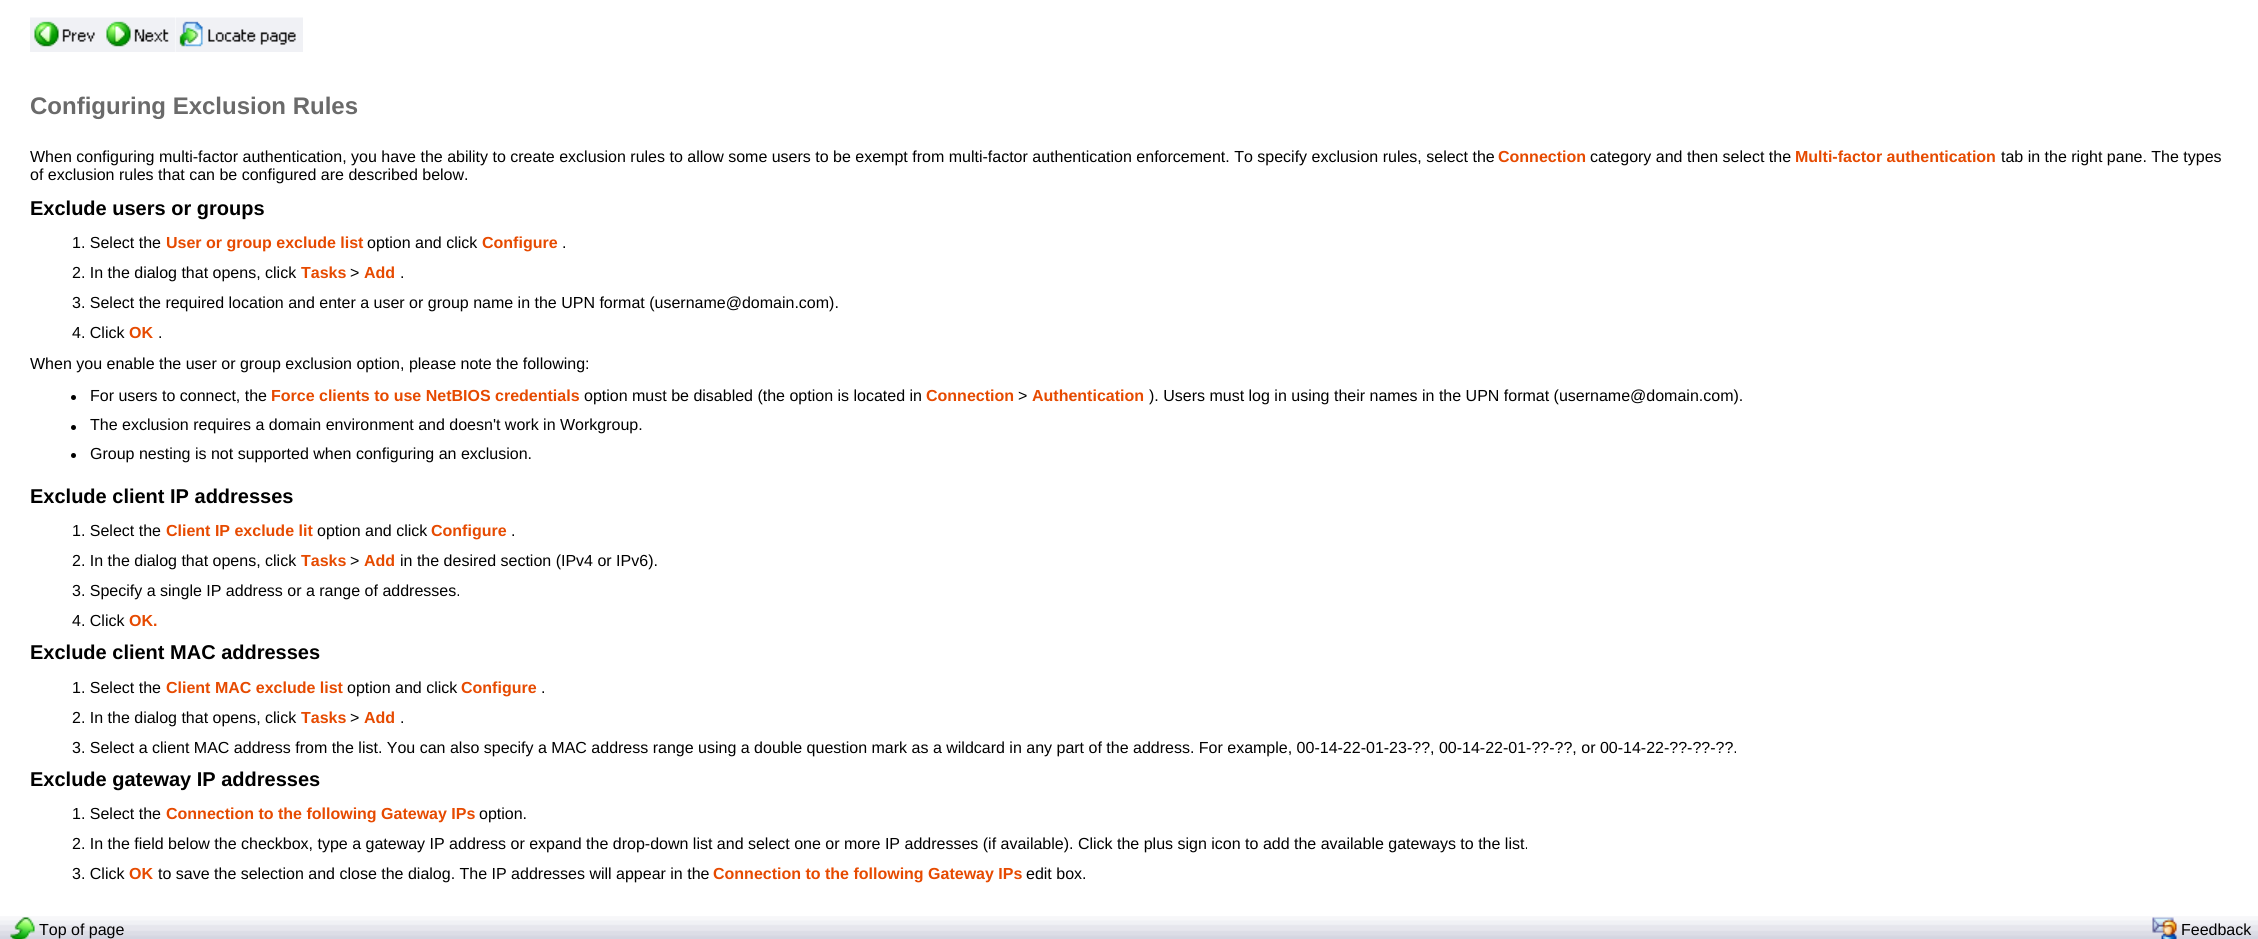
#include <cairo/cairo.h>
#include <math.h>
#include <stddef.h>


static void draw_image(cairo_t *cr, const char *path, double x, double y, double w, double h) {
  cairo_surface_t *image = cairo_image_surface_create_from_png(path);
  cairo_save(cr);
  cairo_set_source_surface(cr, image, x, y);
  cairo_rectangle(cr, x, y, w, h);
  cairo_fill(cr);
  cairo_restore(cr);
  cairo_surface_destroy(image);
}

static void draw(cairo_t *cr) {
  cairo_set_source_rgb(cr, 1, 1, 1);
  cairo_paint(cr);
  draw_image(cr, "images/1.png", 30, 17, 72, 35);
  draw_image(cr, "images/2.png", 102, 17, 74, 35);
  draw_image(cr, "images/3.png", 176, 17, 127, 35);
  cairo_set_source_rgb(cr, 0, 0, 0);
  cairo_arc(cr, 73.5, 397.5, 2.5, 0, 2 * M_PI);
  cairo_fill(cr);
  cairo_arc(cr, 73.5, 427.5, 2.5, 0, 2 * M_PI);
  cairo_fill(cr);
  cairo_arc(cr, 73.5, 455.5, 2.5, 0, 2 * M_PI);
  cairo_fill(cr);
  draw_image(cr, "images/4.png", 0, 916, 2258, 23);
  draw_image(cr, "images/5.png", 10, 917, 25, 22);
  draw_image(cr, "images/6.png", 2152, 917, 25, 22);
  cairo_select_font_face(cr, "Liberation Sans", CAIRO_FONT_SLANT_NORMAL, CAIRO_FONT_WEIGHT_BOLD);
  cairo_set_font_size(cr, 24);
  cairo_set_source_rgb(cr, 106 / 255.0, 106 / 255.0, 106 / 255.0);
  cairo_move_to(cr, 30, 114);
  cairo_show_text(cr, "Configuring Exclusion Rules");
  cairo_select_font_face(cr, "Liberation Sans", CAIRO_FONT_SLANT_NORMAL, CAIRO_FONT_WEIGHT_NORMAL);
  cairo_set_font_size(cr, 16);
  cairo_set_source_rgb(cr, 0, 0, 0);
  cairo_move_to(cr, 30, 162);
  cairo_show_text(cr, "When configuring multi-factor authentication, you have the ability to create exclusion rules to allow some users to be exempt from multi-factor authentication enforcement. To specify exclusion rules, select the");
  cairo_select_font_face(cr, "Liberation Sans", CAIRO_FONT_SLANT_NORMAL, CAIRO_FONT_WEIGHT_BOLD);
  cairo_set_source_rgb(cr, 230 / 255.0, 74 / 255.0, 0);
  cairo_move_to(cr, 1498, 162);
  cairo_show_text(cr, "Connection");
  cairo_select_font_face(cr, "Liberation Sans", CAIRO_FONT_SLANT_NORMAL, CAIRO_FONT_WEIGHT_NORMAL);
  cairo_set_source_rgb(cr, 0, 0, 0);
  cairo_move_to(cr, 1590, 162);
  cairo_show_text(cr, "category and then select the");
  cairo_select_font_face(cr, "Liberation Sans", CAIRO_FONT_SLANT_NORMAL, CAIRO_FONT_WEIGHT_BOLD);
  cairo_set_source_rgb(cr, 230 / 255.0, 74 / 255.0, 0);
  cairo_move_to(cr, 1795, 162);
  cairo_show_text(cr, "Multi-factor authentication");
  cairo_select_font_face(cr, "Liberation Sans", CAIRO_FONT_SLANT_NORMAL, CAIRO_FONT_WEIGHT_NORMAL);
  cairo_set_source_rgb(cr, 0, 0, 0);
  cairo_move_to(cr, 2001, 162);
  cairo_show_text(cr, "tab in the right pane. The types");
  cairo_move_to(cr, 30, 180);
  cairo_show_text(cr, "of exclusion rules that can be configured are described below.");
  cairo_select_font_face(cr, "Liberation Sans", CAIRO_FONT_SLANT_NORMAL, CAIRO_FONT_WEIGHT_BOLD);
  cairo_set_font_size(cr, 20);
  cairo_move_to(cr, 30, 215);
  cairo_show_text(cr, "Exclude users or groups");
  cairo_select_font_face(cr, "Liberation Sans", CAIRO_FONT_SLANT_NORMAL, CAIRO_FONT_WEIGHT_NORMAL);
  cairo_set_font_size(cr, 16);
  cairo_move_to(cr, 72, 248);
  cairo_show_text(cr, "1. Select the");
  cairo_select_font_face(cr, "Liberation Sans", CAIRO_FONT_SLANT_NORMAL, CAIRO_FONT_WEIGHT_BOLD);
  cairo_set_source_rgb(cr, 230 / 255.0, 74 / 255.0, 0);
  cairo_move_to(cr, 166, 248);
  cairo_show_text(cr, "User or group exclude list");
  cairo_select_font_face(cr, "Liberation Sans", CAIRO_FONT_SLANT_NORMAL, CAIRO_FONT_WEIGHT_NORMAL);
  cairo_set_source_rgb(cr, 0, 0, 0);
  cairo_move_to(cr, 367, 248);
  cairo_show_text(cr, "option and click");
  cairo_select_font_face(cr, "Liberation Sans", CAIRO_FONT_SLANT_NORMAL, CAIRO_FONT_WEIGHT_BOLD);
  cairo_set_source_rgb(cr, 230 / 255.0, 74 / 255.0, 0);
  cairo_move_to(cr, 482, 248);
  cairo_show_text(cr, "Configure");
  cairo_select_font_face(cr, "Liberation Sans", CAIRO_FONT_SLANT_NORMAL, CAIRO_FONT_WEIGHT_NORMAL);
  cairo_set_source_rgb(cr, 0, 0, 0);
  cairo_move_to(cr, 562, 248);
  cairo_show_text(cr, ".");
  cairo_move_to(cr, 72, 278);
  cairo_show_text(cr, "2. In the dialog that opens, click");
  cairo_select_font_face(cr, "Liberation Sans", CAIRO_FONT_SLANT_NORMAL, CAIRO_FONT_WEIGHT_BOLD);
  cairo_set_source_rgb(cr, 230 / 255.0, 74 / 255.0, 0);
  cairo_move_to(cr, 301, 278);
  cairo_show_text(cr, "Tasks");
  cairo_select_font_face(cr, "Liberation Sans", CAIRO_FONT_SLANT_NORMAL, CAIRO_FONT_WEIGHT_NORMAL);
  cairo_set_source_rgb(cr, 0, 0, 0);
  cairo_move_to(cr, 350, 278);
  cairo_show_text(cr, ">");
  cairo_select_font_face(cr, "Liberation Sans", CAIRO_FONT_SLANT_NORMAL, CAIRO_FONT_WEIGHT_BOLD);
  cairo_set_source_rgb(cr, 230 / 255.0, 74 / 255.0, 0);
  cairo_move_to(cr, 364, 278);
  cairo_show_text(cr, "Add");
  cairo_select_font_face(cr, "Liberation Sans", CAIRO_FONT_SLANT_NORMAL, CAIRO_FONT_WEIGHT_NORMAL);
  cairo_set_source_rgb(cr, 0, 0, 0);
  cairo_move_to(cr, 400, 278);
  cairo_show_text(cr, ".");
  cairo_move_to(cr, 72, 308);
  cairo_show_text(cr, "3. Select the required location and enter a user or group name in the UPN format (username@domain.com).");
  cairo_move_to(cr, 72, 338);
  cairo_show_text(cr, "4. Click");
  cairo_select_font_face(cr, "Liberation Sans", CAIRO_FONT_SLANT_NORMAL, CAIRO_FONT_WEIGHT_BOLD);
  cairo_set_source_rgb(cr, 230 / 255.0, 74 / 255.0, 0);
  cairo_move_to(cr, 129, 338);
  cairo_show_text(cr, "OK");
  cairo_select_font_face(cr, "Liberation Sans", CAIRO_FONT_SLANT_NORMAL, CAIRO_FONT_WEIGHT_NORMAL);
  cairo_set_source_rgb(cr, 0, 0, 0);
  cairo_move_to(cr, 158, 338);
  cairo_show_text(cr, ".");
  cairo_move_to(cr, 30, 369);
  cairo_show_text(cr, "When you enable the user or group exclusion option, please note the following:");
  cairo_move_to(cr, 90, 401);
  cairo_show_text(cr, "For users to connect, the");
  cairo_select_font_face(cr, "Liberation Sans", CAIRO_FONT_SLANT_NORMAL, CAIRO_FONT_WEIGHT_BOLD);
  cairo_set_source_rgb(cr, 230 / 255.0, 74 / 255.0, 0);
  cairo_move_to(cr, 271, 401);
  cairo_show_text(cr, "Force clients to use NetBIOS credentials");
  cairo_select_font_face(cr, "Liberation Sans", CAIRO_FONT_SLANT_NORMAL, CAIRO_FONT_WEIGHT_NORMAL);
  cairo_set_source_rgb(cr, 0, 0, 0);
  cairo_move_to(cr, 584, 401);
  cairo_show_text(cr, "option must be disabled (the option is located in");
  cairo_select_font_face(cr, "Liberation Sans", CAIRO_FONT_SLANT_NORMAL, CAIRO_FONT_WEIGHT_BOLD);
  cairo_set_source_rgb(cr, 230 / 255.0, 74 / 255.0, 0);
  cairo_move_to(cr, 926, 401);
  cairo_show_text(cr, "Connection");
  cairo_select_font_face(cr, "Liberation Sans", CAIRO_FONT_SLANT_NORMAL, CAIRO_FONT_WEIGHT_NORMAL);
  cairo_set_source_rgb(cr, 0, 0, 0);
  cairo_move_to(cr, 1018, 401);
  cairo_show_text(cr, ">");
  cairo_select_font_face(cr, "Liberation Sans", CAIRO_FONT_SLANT_NORMAL, CAIRO_FONT_WEIGHT_BOLD);
  cairo_set_source_rgb(cr, 230 / 255.0, 74 / 255.0, 0);
  cairo_move_to(cr, 1032, 401);
  cairo_show_text(cr, "Authentication");
  cairo_select_font_face(cr, "Liberation Sans", CAIRO_FONT_SLANT_NORMAL, CAIRO_FONT_WEIGHT_NORMAL);
  cairo_set_source_rgb(cr, 0, 0, 0);
  cairo_move_to(cr, 1149, 401);
  cairo_show_text(cr, "). Users must log in using their names in the UPN format (username@domain.com).");
  cairo_move_to(cr, 90, 430);
  cairo_show_text(cr, "The exclusion requires a domain environment and doesn't work in Workgroup.");
  cairo_move_to(cr, 90, 459);
  cairo_show_text(cr, "Group nesting is not supported when configuring an exclusion.");
  cairo_select_font_face(cr, "Liberation Sans", CAIRO_FONT_SLANT_NORMAL, CAIRO_FONT_WEIGHT_BOLD);
  cairo_set_font_size(cr, 20);
  cairo_move_to(cr, 30, 503);
  cairo_show_text(cr, "Exclude client IP addresses");
  cairo_select_font_face(cr, "Liberation Sans", CAIRO_FONT_SLANT_NORMAL, CAIRO_FONT_WEIGHT_NORMAL);
  cairo_set_font_size(cr, 16);
  cairo_move_to(cr, 72, 536);
  cairo_show_text(cr, "1. Select the");
  cairo_select_font_face(cr, "Liberation Sans", CAIRO_FONT_SLANT_NORMAL, CAIRO_FONT_WEIGHT_BOLD);
  cairo_set_source_rgb(cr, 230 / 255.0, 74 / 255.0, 0);
  cairo_move_to(cr, 166, 536);
  cairo_show_text(cr, "Client IP exclude lit");
  cairo_select_font_face(cr, "Liberation Sans", CAIRO_FONT_SLANT_NORMAL, CAIRO_FONT_WEIGHT_NORMAL);
  cairo_set_source_rgb(cr, 0, 0, 0);
  cairo_move_to(cr, 317, 536);
  cairo_show_text(cr, "option and click");
  cairo_select_font_face(cr, "Liberation Sans", CAIRO_FONT_SLANT_NORMAL, CAIRO_FONT_WEIGHT_BOLD);
  cairo_set_source_rgb(cr, 230 / 255.0, 74 / 255.0, 0);
  cairo_move_to(cr, 431, 536);
  cairo_show_text(cr, "Configure");
  cairo_select_font_face(cr, "Liberation Sans", CAIRO_FONT_SLANT_NORMAL, CAIRO_FONT_WEIGHT_NORMAL);
  cairo_set_source_rgb(cr, 0, 0, 0);
  cairo_move_to(cr, 511, 536);
  cairo_show_text(cr, ".");
  cairo_move_to(cr, 72, 566);
  cairo_show_text(cr, "2. In the dialog that opens, click");
  cairo_select_font_face(cr, "Liberation Sans", CAIRO_FONT_SLANT_NORMAL, CAIRO_FONT_WEIGHT_BOLD);
  cairo_set_source_rgb(cr, 230 / 255.0, 74 / 255.0, 0);
  cairo_move_to(cr, 301, 566);
  cairo_show_text(cr, "Tasks");
  cairo_select_font_face(cr, "Liberation Sans", CAIRO_FONT_SLANT_NORMAL, CAIRO_FONT_WEIGHT_NORMAL);
  cairo_set_source_rgb(cr, 0, 0, 0);
  cairo_move_to(cr, 350, 566);
  cairo_show_text(cr, ">");
  cairo_select_font_face(cr, "Liberation Sans", CAIRO_FONT_SLANT_NORMAL, CAIRO_FONT_WEIGHT_BOLD);
  cairo_set_source_rgb(cr, 230 / 255.0, 74 / 255.0, 0);
  cairo_move_to(cr, 364, 566);
  cairo_show_text(cr, "Add");
  cairo_select_font_face(cr, "Liberation Sans", CAIRO_FONT_SLANT_NORMAL, CAIRO_FONT_WEIGHT_NORMAL);
  cairo_set_source_rgb(cr, 0, 0, 0);
  cairo_move_to(cr, 400, 566);
  cairo_show_text(cr, "in the desired section (IPv4 or IPv6).");
  cairo_move_to(cr, 72, 596);
  cairo_show_text(cr, "3. Specify a single IP address or a range of addresses.");
  cairo_move_to(cr, 72, 626);
  cairo_show_text(cr, "4. Click");
  cairo_select_font_face(cr, "Liberation Sans", CAIRO_FONT_SLANT_NORMAL, CAIRO_FONT_WEIGHT_BOLD);
  cairo_set_source_rgb(cr, 230 / 255.0, 74 / 255.0, 0);
  cairo_move_to(cr, 129, 626);
  cairo_show_text(cr, "OK.");
  cairo_set_font_size(cr, 20);
  cairo_set_source_rgb(cr, 0, 0, 0);
  cairo_move_to(cr, 30, 659);
  cairo_show_text(cr, "Exclude client MAC addresses");
  cairo_select_font_face(cr, "Liberation Sans", CAIRO_FONT_SLANT_NORMAL, CAIRO_FONT_WEIGHT_NORMAL);
  cairo_set_font_size(cr, 16);
  cairo_move_to(cr, 72, 693);
  cairo_show_text(cr, "1. Select the");
  cairo_select_font_face(cr, "Liberation Sans", CAIRO_FONT_SLANT_NORMAL, CAIRO_FONT_WEIGHT_BOLD);
  cairo_set_source_rgb(cr, 230 / 255.0, 74 / 255.0, 0);
  cairo_move_to(cr, 166, 693);
  cairo_show_text(cr, "Client MAC exclude list");
  cairo_select_font_face(cr, "Liberation Sans", CAIRO_FONT_SLANT_NORMAL, CAIRO_FONT_WEIGHT_NORMAL);
  cairo_set_source_rgb(cr, 0, 0, 0);
  cairo_move_to(cr, 347, 693);
  cairo_show_text(cr, "option and click");
  cairo_select_font_face(cr, "Liberation Sans", CAIRO_FONT_SLANT_NORMAL, CAIRO_FONT_WEIGHT_BOLD);
  cairo_set_source_rgb(cr, 230 / 255.0, 74 / 255.0, 0);
  cairo_move_to(cr, 461, 693);
  cairo_show_text(cr, "Configure");
  cairo_select_font_face(cr, "Liberation Sans", CAIRO_FONT_SLANT_NORMAL, CAIRO_FONT_WEIGHT_NORMAL);
  cairo_set_source_rgb(cr, 0, 0, 0);
  cairo_move_to(cr, 541, 693);
  cairo_show_text(cr, ".");
  cairo_move_to(cr, 72, 723);
  cairo_show_text(cr, "2. In the dialog that opens, click");
  cairo_select_font_face(cr, "Liberation Sans", CAIRO_FONT_SLANT_NORMAL, CAIRO_FONT_WEIGHT_BOLD);
  cairo_set_source_rgb(cr, 230 / 255.0, 74 / 255.0, 0);
  cairo_move_to(cr, 301, 723);
  cairo_show_text(cr, "Tasks");
  cairo_select_font_face(cr, "Liberation Sans", CAIRO_FONT_SLANT_NORMAL, CAIRO_FONT_WEIGHT_NORMAL);
  cairo_set_source_rgb(cr, 0, 0, 0);
  cairo_move_to(cr, 350, 723);
  cairo_show_text(cr, ">");
  cairo_select_font_face(cr, "Liberation Sans", CAIRO_FONT_SLANT_NORMAL, CAIRO_FONT_WEIGHT_BOLD);
  cairo_set_source_rgb(cr, 230 / 255.0, 74 / 255.0, 0);
  cairo_move_to(cr, 364, 723);
  cairo_show_text(cr, "Add");
  cairo_select_font_face(cr, "Liberation Sans", CAIRO_FONT_SLANT_NORMAL, CAIRO_FONT_WEIGHT_NORMAL);
  cairo_set_source_rgb(cr, 0, 0, 0);
  cairo_move_to(cr, 400, 723);
  cairo_show_text(cr, ".");
  cairo_move_to(cr, 72, 753);
  cairo_show_text(cr, "3. Select a client MAC address from the list. You can also specify a MAC address range using a double question mark as a wildcard in any part of the address. For example, 00-14-22-01-23-?\077, 00-14-22-01-?\077-?\077, or 00-14-22-?\077-?\077-?\077.");
  cairo_select_font_face(cr, "Liberation Sans", CAIRO_FONT_SLANT_NORMAL, CAIRO_FONT_WEIGHT_BOLD);
  cairo_set_font_size(cr, 20);
  cairo_move_to(cr, 30, 786);
  cairo_show_text(cr, "Exclude gateway IP addresses");
  cairo_select_font_face(cr, "Liberation Sans", CAIRO_FONT_SLANT_NORMAL, CAIRO_FONT_WEIGHT_NORMAL);
  cairo_set_font_size(cr, 16);
  cairo_move_to(cr, 72, 819);
  cairo_show_text(cr, "1. Select the");
  cairo_select_font_face(cr, "Liberation Sans", CAIRO_FONT_SLANT_NORMAL, CAIRO_FONT_WEIGHT_BOLD);
  cairo_set_source_rgb(cr, 230 / 255.0, 74 / 255.0, 0);
  cairo_move_to(cr, 166, 819);
  cairo_show_text(cr, "Connection to the following Gateway IPs");
  cairo_select_font_face(cr, "Liberation Sans", CAIRO_FONT_SLANT_NORMAL, CAIRO_FONT_WEIGHT_NORMAL);
  cairo_set_source_rgb(cr, 0, 0, 0);
  cairo_move_to(cr, 479, 819);
  cairo_show_text(cr, "option.");
  cairo_move_to(cr, 72, 849);
  cairo_show_text(cr, "2. In the field below the checkbox, type a gateway IP address or expand the drop-down list and select one or more IP addresses (if available). Click the plus sign icon to add the available gateways to the list.");
  cairo_move_to(cr, 72, 879);
  cairo_show_text(cr, "3. Click");
  cairo_select_font_face(cr, "Liberation Sans", CAIRO_FONT_SLANT_NORMAL, CAIRO_FONT_WEIGHT_BOLD);
  cairo_set_source_rgb(cr, 230 / 255.0, 74 / 255.0, 0);
  cairo_move_to(cr, 129, 879);
  cairo_show_text(cr, "OK");
  cairo_select_font_face(cr, "Liberation Sans", CAIRO_FONT_SLANT_NORMAL, CAIRO_FONT_WEIGHT_NORMAL);
  cairo_set_source_rgb(cr, 0, 0, 0);
  cairo_move_to(cr, 158, 879);
  cairo_show_text(cr, "to save the selection and close the dialog. The IP addresses will appear in the");
  cairo_select_font_face(cr, "Liberation Sans", CAIRO_FONT_SLANT_NORMAL, CAIRO_FONT_WEIGHT_BOLD);
  cairo_set_source_rgb(cr, 230 / 255.0, 74 / 255.0, 0);
  cairo_move_to(cr, 713, 879);
  cairo_show_text(cr, "Connection to the following Gateway IPs");
  cairo_select_font_face(cr, "Liberation Sans", CAIRO_FONT_SLANT_NORMAL, CAIRO_FONT_WEIGHT_NORMAL);
  cairo_set_source_rgb(cr, 0, 0, 0);
  cairo_move_to(cr, 1026, 879);
  cairo_show_text(cr, "edit box.");
  cairo_move_to(cr, 39, 935);
  cairo_show_text(cr, "Top of page");
  cairo_move_to(cr, 2181, 935);
  cairo_show_text(cr, "Feedback");
}

int main(void) {
  cairo_surface_t *surface = cairo_image_surface_create(CAIRO_FORMAT_RGB24, 2258, 939);
  cairo_t *cr = cairo_create(surface);
  cairo_font_options_t *options = cairo_font_options_create();
  cairo_font_options_set_hint_metrics(options, CAIRO_HINT_METRICS_OFF);
  cairo_font_options_set_hint_style(options, CAIRO_HINT_STYLE_NONE);
  cairo_set_font_options(cr, options);
  cairo_set_miter_limit(cr, 4);
  draw(cr);
  cairo_surface_write_to_png(surface, "out.png");
  cairo_font_options_destroy(options);
  cairo_destroy(cr);
  cairo_surface_destroy(surface);
  return 0;
}
